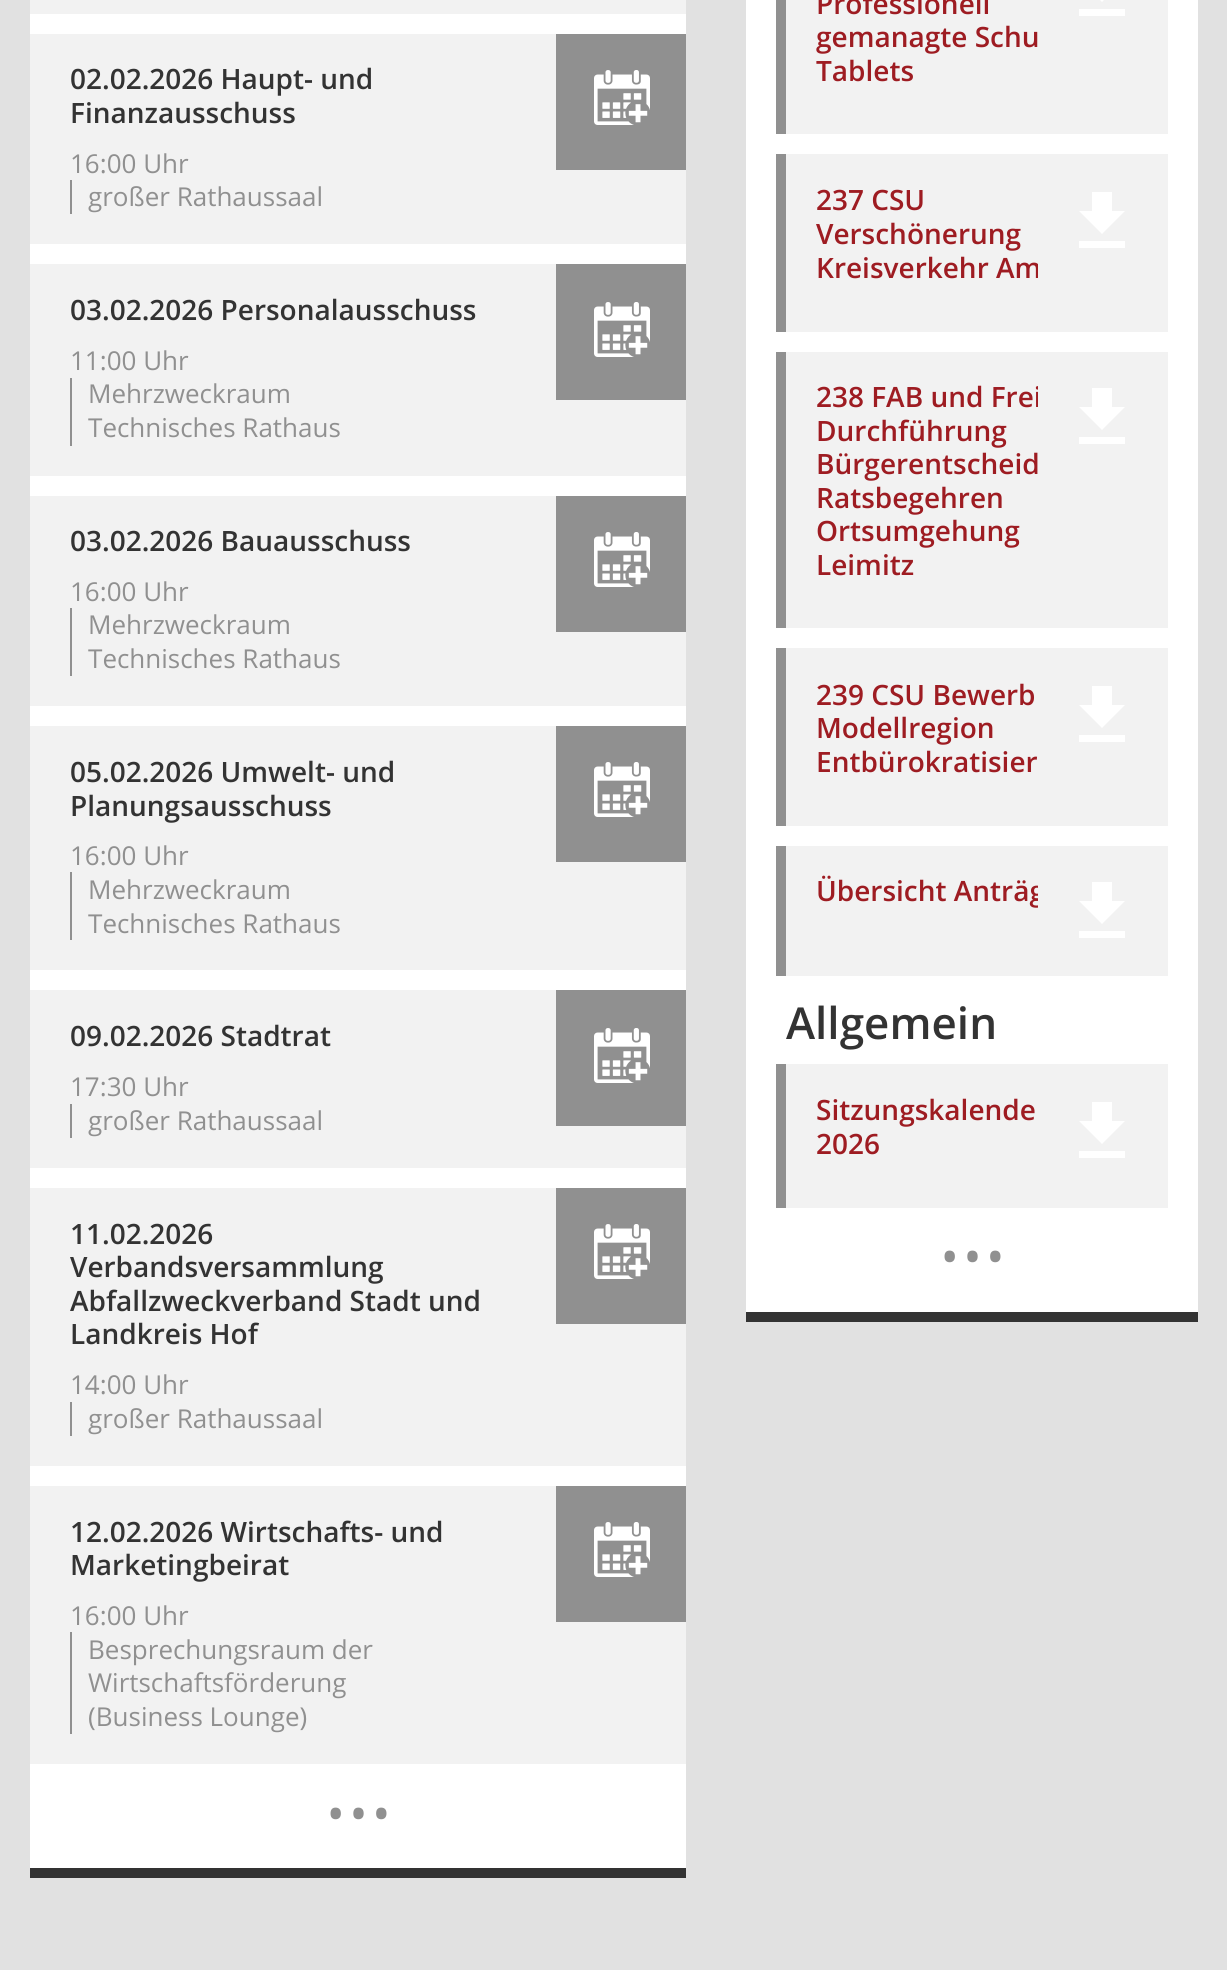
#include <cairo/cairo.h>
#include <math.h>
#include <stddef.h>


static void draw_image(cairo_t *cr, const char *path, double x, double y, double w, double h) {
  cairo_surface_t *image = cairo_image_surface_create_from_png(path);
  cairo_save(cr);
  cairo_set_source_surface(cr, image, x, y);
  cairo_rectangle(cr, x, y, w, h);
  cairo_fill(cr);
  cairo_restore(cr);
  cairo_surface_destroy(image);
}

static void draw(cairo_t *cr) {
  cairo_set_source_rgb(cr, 225 / 255.0, 225 / 255.0, 225 / 255.0);
  cairo_paint(cr);
  cairo_set_source_rgb(cr, 1, 1, 1);
  cairo_rectangle(cr, 30, 14, 656, 1854);
  cairo_fill(cr);
  cairo_set_source_rgb(cr, 51 / 255.0, 51 / 255.0, 51 / 255.0);
  cairo_rectangle(cr, 30, 1868, 656, 10);
  cairo_fill(cr);
  cairo_set_source_rgb(cr, 242 / 255.0, 242 / 255.0, 242 / 255.0);
  cairo_rectangle(cr, 30, 0, 656, 14);
  cairo_fill(cr);
  cairo_rectangle(cr, 30, 34, 656, 210);
  cairo_fill(cr);
  cairo_set_source_rgb(cr, 144 / 255.0, 144 / 255.0, 144 / 255.0);
  cairo_rectangle(cr, 556, 34, 130, 136);
  cairo_fill(cr);
  draw_image(cr, "images/1.png", 594, 70, 56, 55);
  cairo_rectangle(cr, 70, 180, 2, 34);
  cairo_fill(cr);
  cairo_set_source_rgb(cr, 242 / 255.0, 242 / 255.0, 242 / 255.0);
  cairo_rectangle(cr, 30, 264, 656, 212);
  cairo_fill(cr);
  cairo_set_source_rgb(cr, 144 / 255.0, 144 / 255.0, 144 / 255.0);
  cairo_rectangle(cr, 556, 264, 130, 136);
  cairo_fill(cr);
  draw_image(cr, "images/1.png", 594, 302, 56, 55);
  cairo_rectangle(cr, 70, 378, 2, 68);
  cairo_fill(cr);
  cairo_set_source_rgb(cr, 242 / 255.0, 242 / 255.0, 242 / 255.0);
  cairo_rectangle(cr, 30, 496, 656, 210);
  cairo_fill(cr);
  cairo_set_source_rgb(cr, 144 / 255.0, 144 / 255.0, 144 / 255.0);
  cairo_rectangle(cr, 556, 496, 130, 136);
  cairo_fill(cr);
  draw_image(cr, "images/1.png", 594, 532, 56, 55);
  cairo_rectangle(cr, 70, 608, 2, 68);
  cairo_fill(cr);
  cairo_set_source_rgb(cr, 242 / 255.0, 242 / 255.0, 242 / 255.0);
  cairo_rectangle(cr, 30, 726, 656, 244);
  cairo_fill(cr);
  cairo_set_source_rgb(cr, 144 / 255.0, 144 / 255.0, 144 / 255.0);
  cairo_rectangle(cr, 556, 726, 130, 136);
  cairo_fill(cr);
  draw_image(cr, "images/1.png", 594, 762, 56, 55);
  cairo_rectangle(cr, 70, 872, 2, 68);
  cairo_fill(cr);
  cairo_set_source_rgb(cr, 242 / 255.0, 242 / 255.0, 242 / 255.0);
  cairo_rectangle(cr, 30, 990, 656, 178);
  cairo_fill(cr);
  cairo_set_source_rgb(cr, 144 / 255.0, 144 / 255.0, 144 / 255.0);
  cairo_rectangle(cr, 556, 990, 130, 136);
  cairo_fill(cr);
  draw_image(cr, "images/1.png", 594, 1028, 56, 55);
  cairo_rectangle(cr, 70, 1104, 2, 34);
  cairo_fill(cr);
  cairo_set_source_rgb(cr, 242 / 255.0, 242 / 255.0, 242 / 255.0);
  cairo_rectangle(cr, 30, 1188, 656, 278);
  cairo_fill(cr);
  cairo_set_source_rgb(cr, 144 / 255.0, 144 / 255.0, 144 / 255.0);
  cairo_rectangle(cr, 556, 1188, 130, 136);
  cairo_fill(cr);
  draw_image(cr, "images/1.png", 594, 1224, 56, 55);
  cairo_rectangle(cr, 70, 1402, 2, 34);
  cairo_fill(cr);
  cairo_set_source_rgb(cr, 242 / 255.0, 242 / 255.0, 242 / 255.0);
  cairo_rectangle(cr, 30, 1486, 656, 278);
  cairo_fill(cr);
  cairo_set_source_rgb(cr, 144 / 255.0, 144 / 255.0, 144 / 255.0);
  cairo_rectangle(cr, 556, 1486, 130, 136);
  cairo_fill(cr);
  draw_image(cr, "images/1.png", 594, 1522, 56, 55);
  cairo_rectangle(cr, 70, 1632, 2, 102);
  cairo_fill(cr);
  cairo_set_source_rgb(cr, 1, 1, 1);
  cairo_rectangle(cr, 746, 0, 452, 1312);
  cairo_fill(cr);
  cairo_set_source_rgb(cr, 51 / 255.0, 51 / 255.0, 51 / 255.0);
  cairo_rectangle(cr, 746, 1312, 452, 10);
  cairo_fill(cr);
  cairo_set_source_rgb(cr, 242 / 255.0, 242 / 255.0, 242 / 255.0);
  cairo_rectangle(cr, 786, 0, 382, 134);
  cairo_fill(cr);
  cairo_set_source_rgb(cr, 144 / 255.0, 144 / 255.0, 144 / 255.0);
  cairo_rectangle(cr, 776, 0, 10, 134);
  cairo_fill(cr);
  cairo_set_source_rgb(cr, 1, 1, 1);
  cairo_new_path(cr);
  cairo_move_to(cr, 1125, -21);
  cairo_line_to(cr, 1112, -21);
  cairo_line_to(cr, 1112, -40);
  cairo_line_to(cr, 1092, -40);
  cairo_line_to(cr, 1092, -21);
  cairo_line_to(cr, 1079, -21);
  cairo_line_to(cr, 1102, 2);
  cairo_close_path(cr);
  cairo_move_to(cr, 1079, 9);
  cairo_line_to(cr, 1079, 16);
  cairo_line_to(cr, 1125, 16);
  cairo_line_to(cr, 1125, 9);
  cairo_close_path(cr);
  cairo_fill(cr);
  cairo_set_source_rgb(cr, 242 / 255.0, 242 / 255.0, 242 / 255.0);
  cairo_rectangle(cr, 786, 154, 382, 178);
  cairo_fill(cr);
  cairo_set_source_rgb(cr, 144 / 255.0, 144 / 255.0, 144 / 255.0);
  cairo_rectangle(cr, 776, 154, 10, 178);
  cairo_fill(cr);
  cairo_set_source_rgb(cr, 1, 1, 1);
  cairo_new_path(cr);
  cairo_move_to(cr, 1125, 211);
  cairo_line_to(cr, 1112, 211);
  cairo_line_to(cr, 1112, 192);
  cairo_line_to(cr, 1092, 192);
  cairo_line_to(cr, 1092, 211);
  cairo_line_to(cr, 1079, 211);
  cairo_line_to(cr, 1102, 234);
  cairo_close_path(cr);
  cairo_move_to(cr, 1079, 241);
  cairo_line_to(cr, 1079, 248);
  cairo_line_to(cr, 1125, 248);
  cairo_line_to(cr, 1125, 241);
  cairo_close_path(cr);
  cairo_fill(cr);
  cairo_set_source_rgb(cr, 242 / 255.0, 242 / 255.0, 242 / 255.0);
  cairo_rectangle(cr, 786, 352, 382, 276);
  cairo_fill(cr);
  cairo_set_source_rgb(cr, 144 / 255.0, 144 / 255.0, 144 / 255.0);
  cairo_rectangle(cr, 776, 352, 10, 276);
  cairo_fill(cr);
  cairo_set_source_rgb(cr, 1, 1, 1);
  cairo_new_path(cr);
  cairo_move_to(cr, 1125, 407);
  cairo_line_to(cr, 1112, 407);
  cairo_line_to(cr, 1112, 388);
  cairo_line_to(cr, 1092, 388);
  cairo_line_to(cr, 1092, 407);
  cairo_line_to(cr, 1079, 407);
  cairo_line_to(cr, 1102, 430);
  cairo_close_path(cr);
  cairo_move_to(cr, 1079, 437);
  cairo_line_to(cr, 1079, 444);
  cairo_line_to(cr, 1125, 444);
  cairo_line_to(cr, 1125, 437);
  cairo_close_path(cr);
  cairo_fill(cr);
  cairo_set_source_rgb(cr, 242 / 255.0, 242 / 255.0, 242 / 255.0);
  cairo_rectangle(cr, 786, 648, 382, 178);
  cairo_fill(cr);
  cairo_set_source_rgb(cr, 144 / 255.0, 144 / 255.0, 144 / 255.0);
  cairo_rectangle(cr, 776, 648, 10, 178);
  cairo_fill(cr);
  cairo_set_source_rgb(cr, 1, 1, 1);
  cairo_new_path(cr);
  cairo_move_to(cr, 1125, 705);
  cairo_line_to(cr, 1112, 705);
  cairo_line_to(cr, 1112, 686);
  cairo_line_to(cr, 1092, 686);
  cairo_line_to(cr, 1092, 705);
  cairo_line_to(cr, 1079, 705);
  cairo_line_to(cr, 1102, 728);
  cairo_close_path(cr);
  cairo_move_to(cr, 1079, 735);
  cairo_line_to(cr, 1079, 742);
  cairo_line_to(cr, 1125, 742);
  cairo_line_to(cr, 1125, 735);
  cairo_close_path(cr);
  cairo_fill(cr);
  cairo_set_source_rgb(cr, 242 / 255.0, 242 / 255.0, 242 / 255.0);
  cairo_rectangle(cr, 786, 846, 252, 130);
  cairo_fill(cr);
  cairo_set_source_rgb(cr, 144 / 255.0, 144 / 255.0, 144 / 255.0);
  cairo_rectangle(cr, 776, 846, 10, 130);
  cairo_fill(cr);
  cairo_set_source_rgb(cr, 242 / 255.0, 242 / 255.0, 242 / 255.0);
  cairo_rectangle(cr, 786, 1064, 382, 144);
  cairo_fill(cr);
  cairo_set_source_rgb(cr, 144 / 255.0, 144 / 255.0, 144 / 255.0);
  cairo_rectangle(cr, 776, 1064, 10, 144);
  cairo_fill(cr);
  cairo_set_source_rgb(cr, 1, 1, 1);
  cairo_new_path(cr);
  cairo_move_to(cr, 1125, 1121);
  cairo_line_to(cr, 1112, 1121);
  cairo_line_to(cr, 1112, 1102);
  cairo_line_to(cr, 1092, 1102);
  cairo_line_to(cr, 1092, 1121);
  cairo_line_to(cr, 1079, 1121);
  cairo_line_to(cr, 1102, 1144);
  cairo_close_path(cr);
  cairo_move_to(cr, 1079, 1151);
  cairo_line_to(cr, 1079, 1158);
  cairo_line_to(cr, 1125, 1158);
  cairo_line_to(cr, 1125, 1151);
  cairo_close_path(cr);
  cairo_fill(cr);
  cairo_select_font_face(cr, "Open Sans SemiBold", CAIRO_FONT_SLANT_NORMAL, CAIRO_FONT_WEIGHT_NORMAL);
  cairo_set_font_size(cr, 28);
  cairo_set_source_rgb(cr, 51 / 255.0, 51 / 255.0, 51 / 255.0);
  cairo_move_to(cr, 70, 89);
  cairo_show_text(cr, "02.02.2026 Haupt- und");
  cairo_move_to(cr, 70, 123);
  cairo_show_text(cr, "Finanzausschuss");
  cairo_select_font_face(cr, "Open Sans", CAIRO_FONT_SLANT_NORMAL, CAIRO_FONT_WEIGHT_NORMAL);
  cairo_set_font_size(cr, 26);
  cairo_set_source_rgb(cr, 144 / 255.0, 144 / 255.0, 144 / 255.0);
  cairo_move_to(cr, 70, 173);
  cairo_show_text(cr, "16:00 Uhr");
  cairo_move_to(cr, 88, 206);
  cairo_show_text(cr, "großer Rathaussaal");
  cairo_select_font_face(cr, "Open Sans SemiBold", CAIRO_FONT_SLANT_NORMAL, CAIRO_FONT_WEIGHT_NORMAL);
  cairo_set_font_size(cr, 28);
  cairo_set_source_rgb(cr, 51 / 255.0, 51 / 255.0, 51 / 255.0);
  cairo_move_to(cr, 70, 320);
  cairo_show_text(cr, "03.02.2026 Personalausschuss");
  cairo_select_font_face(cr, "Open Sans", CAIRO_FONT_SLANT_NORMAL, CAIRO_FONT_WEIGHT_NORMAL);
  cairo_set_font_size(cr, 26);
  cairo_set_source_rgb(cr, 144 / 255.0, 144 / 255.0, 144 / 255.0);
  cairo_move_to(cr, 70, 370);
  cairo_show_text(cr, "11:00 Uhr");
  cairo_move_to(cr, 88, 403);
  cairo_show_text(cr, "Mehrzweckraum");
  cairo_move_to(cr, 88, 437);
  cairo_show_text(cr, "Technisches Rathaus");
  cairo_select_font_face(cr, "Open Sans SemiBold", CAIRO_FONT_SLANT_NORMAL, CAIRO_FONT_WEIGHT_NORMAL);
  cairo_set_font_size(cr, 28);
  cairo_set_source_rgb(cr, 51 / 255.0, 51 / 255.0, 51 / 255.0);
  cairo_move_to(cr, 70, 551);
  cairo_show_text(cr, "03.02.2026 Bauausschuss");
  cairo_select_font_face(cr, "Open Sans", CAIRO_FONT_SLANT_NORMAL, CAIRO_FONT_WEIGHT_NORMAL);
  cairo_set_font_size(cr, 26);
  cairo_set_source_rgb(cr, 144 / 255.0, 144 / 255.0, 144 / 255.0);
  cairo_move_to(cr, 70, 601);
  cairo_show_text(cr, "16:00 Uhr");
  cairo_move_to(cr, 88, 634);
  cairo_show_text(cr, "Mehrzweckraum");
  cairo_move_to(cr, 88, 668);
  cairo_show_text(cr, "Technisches Rathaus");
  cairo_select_font_face(cr, "Open Sans SemiBold", CAIRO_FONT_SLANT_NORMAL, CAIRO_FONT_WEIGHT_NORMAL);
  cairo_set_font_size(cr, 28);
  cairo_set_source_rgb(cr, 51 / 255.0, 51 / 255.0, 51 / 255.0);
  cairo_move_to(cr, 70, 782);
  cairo_show_text(cr, "05.02.2026 Umwelt- und");
  cairo_move_to(cr, 70, 816);
  cairo_show_text(cr, "Planungsausschuss");
  cairo_select_font_face(cr, "Open Sans", CAIRO_FONT_SLANT_NORMAL, CAIRO_FONT_WEIGHT_NORMAL);
  cairo_set_font_size(cr, 26);
  cairo_set_source_rgb(cr, 144 / 255.0, 144 / 255.0, 144 / 255.0);
  cairo_move_to(cr, 70, 865);
  cairo_show_text(cr, "16:00 Uhr");
  cairo_move_to(cr, 88, 899);
  cairo_show_text(cr, "Mehrzweckraum");
  cairo_move_to(cr, 88, 933);
  cairo_show_text(cr, "Technisches Rathaus");
  cairo_select_font_face(cr, "Open Sans SemiBold", CAIRO_FONT_SLANT_NORMAL, CAIRO_FONT_WEIGHT_NORMAL);
  cairo_set_font_size(cr, 28);
  cairo_set_source_rgb(cr, 51 / 255.0, 51 / 255.0, 51 / 255.0);
  cairo_move_to(cr, 70, 1046);
  cairo_show_text(cr, "09.02.2026 Stadtrat");
  cairo_select_font_face(cr, "Open Sans", CAIRO_FONT_SLANT_NORMAL, CAIRO_FONT_WEIGHT_NORMAL);
  cairo_set_font_size(cr, 26);
  cairo_set_source_rgb(cr, 144 / 255.0, 144 / 255.0, 144 / 255.0);
  cairo_move_to(cr, 70, 1096);
  cairo_show_text(cr, "17:30 Uhr");
  cairo_move_to(cr, 88, 1130);
  cairo_show_text(cr, "großer Rathaussaal");
  cairo_select_font_face(cr, "Open Sans SemiBold", CAIRO_FONT_SLANT_NORMAL, CAIRO_FONT_WEIGHT_NORMAL);
  cairo_set_font_size(cr, 28);
  cairo_set_source_rgb(cr, 51 / 255.0, 51 / 255.0, 51 / 255.0);
  cairo_move_to(cr, 70, 1244);
  cairo_show_text(cr, "11.02.2026");
  cairo_move_to(cr, 70, 1277);
  cairo_show_text(cr, "Verbandsversammlung");
  cairo_move_to(cr, 70, 1311);
  cairo_show_text(cr, "Abfallzweckverband Stadt und");
  cairo_move_to(cr, 70, 1344);
  cairo_show_text(cr, "Landkreis Hof");
  cairo_select_font_face(cr, "Open Sans", CAIRO_FONT_SLANT_NORMAL, CAIRO_FONT_WEIGHT_NORMAL);
  cairo_set_font_size(cr, 26);
  cairo_set_source_rgb(cr, 144 / 255.0, 144 / 255.0, 144 / 255.0);
  cairo_move_to(cr, 70, 1394);
  cairo_show_text(cr, "14:00 Uhr");
  cairo_move_to(cr, 88, 1428);
  cairo_show_text(cr, "großer Rathaussaal");
  cairo_select_font_face(cr, "Open Sans SemiBold", CAIRO_FONT_SLANT_NORMAL, CAIRO_FONT_WEIGHT_NORMAL);
  cairo_set_font_size(cr, 28);
  cairo_set_source_rgb(cr, 51 / 255.0, 51 / 255.0, 51 / 255.0);
  cairo_move_to(cr, 70, 1542);
  cairo_show_text(cr, "12.02.2026 Wirtschafts- und");
  cairo_move_to(cr, 70, 1575);
  cairo_show_text(cr, "Marketingbeirat");
  cairo_select_font_face(cr, "Open Sans", CAIRO_FONT_SLANT_NORMAL, CAIRO_FONT_WEIGHT_NORMAL);
  cairo_set_font_size(cr, 26);
  cairo_set_source_rgb(cr, 144 / 255.0, 144 / 255.0, 144 / 255.0);
  cairo_move_to(cr, 70, 1625);
  cairo_show_text(cr, "16:00 Uhr");
  cairo_move_to(cr, 88, 1659);
  cairo_show_text(cr, "Besprechungsraum der");
  cairo_move_to(cr, 88, 1692);
  cairo_show_text(cr, "Wirtschaftsförderung");
  cairo_move_to(cr, 88, 1726);
  cairo_show_text(cr, "(Business Lounge)");
  cairo_set_font_size(cr, 88);
  cairo_move_to(cr, 324, 1818);
  cairo_show_text(cr, "…");
  cairo_select_font_face(cr, "Open Sans SemiBold", CAIRO_FONT_SLANT_NORMAL, CAIRO_FONT_WEIGHT_NORMAL);
  cairo_set_font_size(cr, 28);
  cairo_set_source_rgb(cr, 158 / 255.0, 28 / 255.0, 34 / 255.0);
  cairo_move_to(cr, 816, 14);
  cairo_show_text(cr, "Professionell");
  cairo_move_to(cr, 816, 47);
  cairo_show_text(cr, "gemanagte Schu");
  cairo_move_to(cr, 816, 81);
  cairo_show_text(cr, "Tablets");
  cairo_move_to(cr, 816, 210);
  cairo_show_text(cr, "237 CSU");
  cairo_move_to(cr, 816, 244);
  cairo_show_text(cr, "Verschönerung");
  cairo_move_to(cr, 816, 278);
  cairo_show_text(cr, "Kreisverkehr Am");
  cairo_set_source_rgb(cr, 242 / 255.0, 242 / 255.0, 242 / 255.0);
  cairo_rectangle(cr, 1038, 263, 2, 15);
  cairo_fill(cr);
  cairo_set_source_rgb(cr, 158 / 255.0, 28 / 255.0, 34 / 255.0);
  cairo_move_to(cr, 816, 407);
  cairo_show_text(cr, "238 FAB und Frei");
  cairo_move_to(cr, 816, 441);
  cairo_show_text(cr, "Durchführung");
  cairo_move_to(cr, 816, 474);
  cairo_show_text(cr, "Bürgerentscheid");
  cairo_move_to(cr, 816, 508);
  cairo_show_text(cr, "Ratsbegehren");
  cairo_move_to(cr, 816, 541);
  cairo_show_text(cr, "Ortsumgehung");
  cairo_move_to(cr, 816, 575);
  cairo_show_text(cr, "Leimitz");
  cairo_set_source_rgb(cr, 242 / 255.0, 242 / 255.0, 242 / 255.0);
  cairo_rectangle(cr, 1038, 386, 2, 21);
  cairo_fill(cr);
  cairo_set_source_rgb(cr, 158 / 255.0, 28 / 255.0, 34 / 255.0);
  cairo_move_to(cr, 816, 705);
  cairo_show_text(cr, "239 CSU Bewerb");
  cairo_move_to(cr, 816, 738);
  cairo_show_text(cr, "Modellregion");
  cairo_move_to(cr, 816, 772);
  cairo_show_text(cr, "Entbürokratisier");
  cairo_move_to(cr, 816, 901);
  cairo_show_text(cr, "Übersicht Anträg");
  cairo_set_source_rgb(cr, 242 / 255.0, 242 / 255.0, 242 / 255.0);
  cairo_rectangle(cr, 1038, 846, 130, 130);
  cairo_fill(cr);
  cairo_set_source_rgb(cr, 1, 1, 1);
  cairo_new_path(cr);
  cairo_move_to(cr, 1125, 901);
  cairo_line_to(cr, 1112, 901);
  cairo_line_to(cr, 1112, 882);
  cairo_line_to(cr, 1092, 882);
  cairo_line_to(cr, 1092, 901);
  cairo_line_to(cr, 1079, 901);
  cairo_line_to(cr, 1102, 924);
  cairo_close_path(cr);
  cairo_move_to(cr, 1079, 931);
  cairo_line_to(cr, 1079, 938);
  cairo_line_to(cr, 1125, 938);
  cairo_line_to(cr, 1125, 931);
  cairo_close_path(cr);
  cairo_fill(cr);
  cairo_set_font_size(cr, 44);
  cairo_set_source_rgb(cr, 51 / 255.0, 51 / 255.0, 51 / 255.0);
  cairo_move_to(cr, 786, 1039);
  cairo_show_text(cr, "Allgemein");
  cairo_set_font_size(cr, 28);
  cairo_set_source_rgb(cr, 158 / 255.0, 28 / 255.0, 34 / 255.0);
  cairo_move_to(cr, 816, 1120);
  cairo_show_text(cr, "Sitzungskalende");
  cairo_move_to(cr, 816, 1154);
  cairo_show_text(cr, "2026");
  cairo_select_font_face(cr, "Open Sans", CAIRO_FONT_SLANT_NORMAL, CAIRO_FONT_WEIGHT_NORMAL);
  cairo_set_font_size(cr, 88);
  cairo_set_source_rgb(cr, 144 / 255.0, 144 / 255.0, 144 / 255.0);
  cairo_move_to(cr, 938, 1261);
  cairo_show_text(cr, "…");
}

int main(void) {
  cairo_surface_t *surface = cairo_image_surface_create(CAIRO_FORMAT_RGB24, 1227, 1970);
  cairo_t *cr = cairo_create(surface);
  cairo_font_options_t *options = cairo_font_options_create();
  cairo_font_options_set_hint_metrics(options, CAIRO_HINT_METRICS_OFF);
  cairo_font_options_set_hint_style(options, CAIRO_HINT_STYLE_NONE);
  cairo_set_font_options(cr, options);
  cairo_set_miter_limit(cr, 4);
  draw(cr);
  cairo_surface_write_to_png(surface, "out.png");
  cairo_font_options_destroy(options);
  cairo_destroy(cr);
  cairo_surface_destroy(surface);
  return 0;
}
